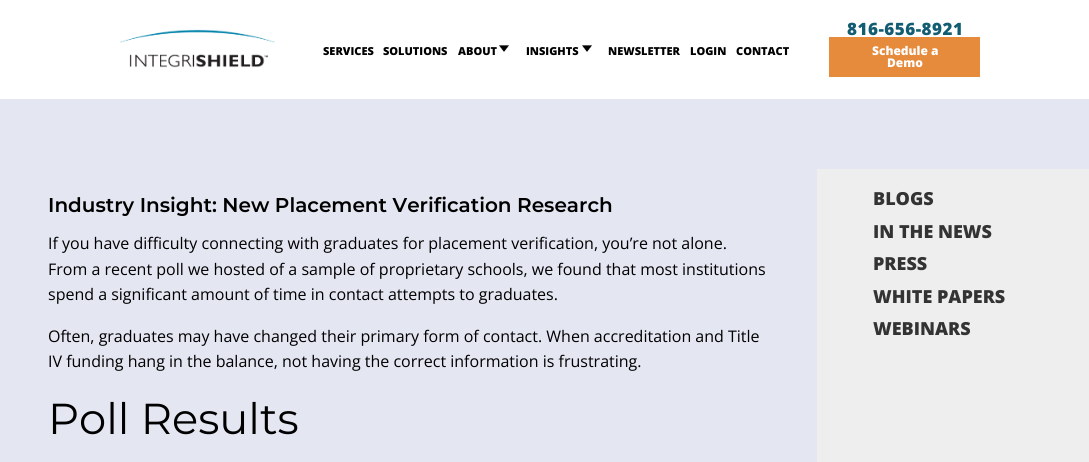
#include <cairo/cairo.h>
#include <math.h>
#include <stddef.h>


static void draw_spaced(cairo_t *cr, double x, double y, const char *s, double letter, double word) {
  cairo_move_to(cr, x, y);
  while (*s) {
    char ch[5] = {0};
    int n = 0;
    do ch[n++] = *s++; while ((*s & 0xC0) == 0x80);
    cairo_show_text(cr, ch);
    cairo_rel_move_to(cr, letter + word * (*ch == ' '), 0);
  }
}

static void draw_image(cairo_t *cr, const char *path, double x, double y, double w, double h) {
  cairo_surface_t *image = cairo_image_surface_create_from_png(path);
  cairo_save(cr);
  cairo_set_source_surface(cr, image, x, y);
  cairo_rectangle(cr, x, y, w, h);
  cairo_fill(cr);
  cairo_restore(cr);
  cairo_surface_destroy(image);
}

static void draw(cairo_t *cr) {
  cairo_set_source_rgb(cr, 1, 1, 1);
  cairo_paint(cr);
  draw_image(cr, "images/1.png", 119, 29, 156, 39);
  draw_image(cr, "images/2.png", 499, 45, 10, 7);
  draw_image(cr, "images/2.png", 582, 45, 10, 7);
  cairo_set_source_rgb(cr, 229 / 255.0, 139 / 255.0, 59 / 255.0);
  cairo_rectangle(cr, 829, 37, 151, 40);
  cairo_fill(cr);
  cairo_set_source_rgb(cr, 228 / 255.0, 230 / 255.0, 242 / 255.0);
  cairo_rectangle(cr, 0, 99, 1089, 363);
  cairo_fill(cr);
  cairo_set_source_rgb(cr, 238 / 255.0, 238 / 255.0, 238 / 255.0);
  cairo_rectangle(cr, 817, 169, 272, 293);
  cairo_fill(cr);
  cairo_select_font_face(cr, "Open Sans ExtraBold", CAIRO_FONT_SLANT_NORMAL, CAIRO_FONT_WEIGHT_NORMAL);
  cairo_set_font_size(cr, 11);
  cairo_set_source_rgb(cr, 0, 0, 0);
  cairo_move_to(cr, 323, 55);
  cairo_show_text(cr, "SERVICES");
  cairo_move_to(cr, 383, 55);
  cairo_show_text(cr, "SOLUTIONS");
  cairo_move_to(cr, 458, 55);
  cairo_show_text(cr, "ABOUT");
  cairo_move_to(cr, 526, 55);
  cairo_show_text(cr, "INSIGHTS");
  cairo_move_to(cr, 608, 55);
  cairo_show_text(cr, "NEWSLETTER");
  cairo_move_to(cr, 690, 55);
  cairo_show_text(cr, "LOGIN");
  cairo_move_to(cr, 736, 55);
  cairo_show_text(cr, "CONTACT");
  cairo_set_font_size(cr, 17);
  cairo_set_source_rgb(cr, 18 / 255.0, 93 / 255.0, 114 / 255.0);
  draw_spaced(cr, 847, 35, "816-656-8921", 0.5, 0);
  cairo_set_font_size(cr, 12);
  cairo_set_source_rgb(cr, 1, 1, 1);
  cairo_move_to(cr, 872, 55);
  cairo_show_text(cr, "Schedule a");
  cairo_move_to(cr, 887, 67);
  cairo_show_text(cr, "Demo");
  cairo_select_font_face(cr, "Montserrat SemiBold", CAIRO_FONT_SLANT_NORMAL, CAIRO_FONT_WEIGHT_NORMAL);
  cairo_set_font_size(cr, 20);
  cairo_set_source_rgb(cr, 0, 0, 0);
  cairo_move_to(cr, 48, 212);
  cairo_show_text(cr, "Industry Insight: New Placement Verification Research");
  cairo_select_font_face(cr, "Open Sans", CAIRO_FONT_SLANT_NORMAL, CAIRO_FONT_WEIGHT_NORMAL);
  cairo_set_font_size(cr, 16);
  cairo_move_to(cr, 48, 249);
  cairo_show_text(cr, "If you have difficulty connecting with graduates for placement verification, you’re not alone.");
  cairo_move_to(cr, 48, 275);
  cairo_show_text(cr, "From a recent poll we hosted of a sample of proprietary schools, we found that most institutions");
  cairo_move_to(cr, 48, 300);
  cairo_show_text(cr, "spend a significant amount of time in contact attempts to graduates.");
  cairo_move_to(cr, 48, 342);
  cairo_show_text(cr, "Often, graduates may have changed their primary form of contact. When accreditation and Title");
  cairo_move_to(cr, 48, 367);
  cairo_show_text(cr, "IV funding hang in the balance, not having the correct information is frustrating.");
  cairo_select_font_face(cr, "Montserrat", CAIRO_FONT_SLANT_NORMAL, CAIRO_FONT_WEIGHT_NORMAL);
  cairo_set_font_size(cr, 43.25);
  cairo_move_to(cr, 48, 434);
  cairo_show_text(cr, "Poll Results");
  cairo_select_font_face(cr, "Open Sans ExtraBold", CAIRO_FONT_SLANT_NORMAL, CAIRO_FONT_WEIGHT_NORMAL);
  cairo_set_font_size(cr, 18);
  cairo_set_source_rgb(cr, 51 / 255.0, 51 / 255.0, 51 / 255.0);
  cairo_move_to(cr, 873, 205);
  cairo_show_text(cr, "BLOGS");
  cairo_move_to(cr, 873, 238);
  cairo_show_text(cr, "IN THE NEWS");
  cairo_move_to(cr, 873, 270);
  cairo_show_text(cr, "PRESS");
  cairo_move_to(cr, 873, 303);
  cairo_show_text(cr, "WHITE PAPERS");
  cairo_move_to(cr, 873, 335);
  cairo_show_text(cr, "WEBINARS");
}

int main(void) {
  cairo_surface_t *surface = cairo_image_surface_create(CAIRO_FORMAT_RGB24, 1089, 462);
  cairo_t *cr = cairo_create(surface);
  cairo_font_options_t *options = cairo_font_options_create();
  cairo_font_options_set_hint_metrics(options, CAIRO_HINT_METRICS_OFF);
  cairo_font_options_set_hint_style(options, CAIRO_HINT_STYLE_NONE);
  cairo_set_font_options(cr, options);
  cairo_set_miter_limit(cr, 4);
  draw(cr);
  cairo_surface_write_to_png(surface, "out.png");
  cairo_font_options_destroy(options);
  cairo_destroy(cr);
  cairo_surface_destroy(surface);
  return 0;
}
